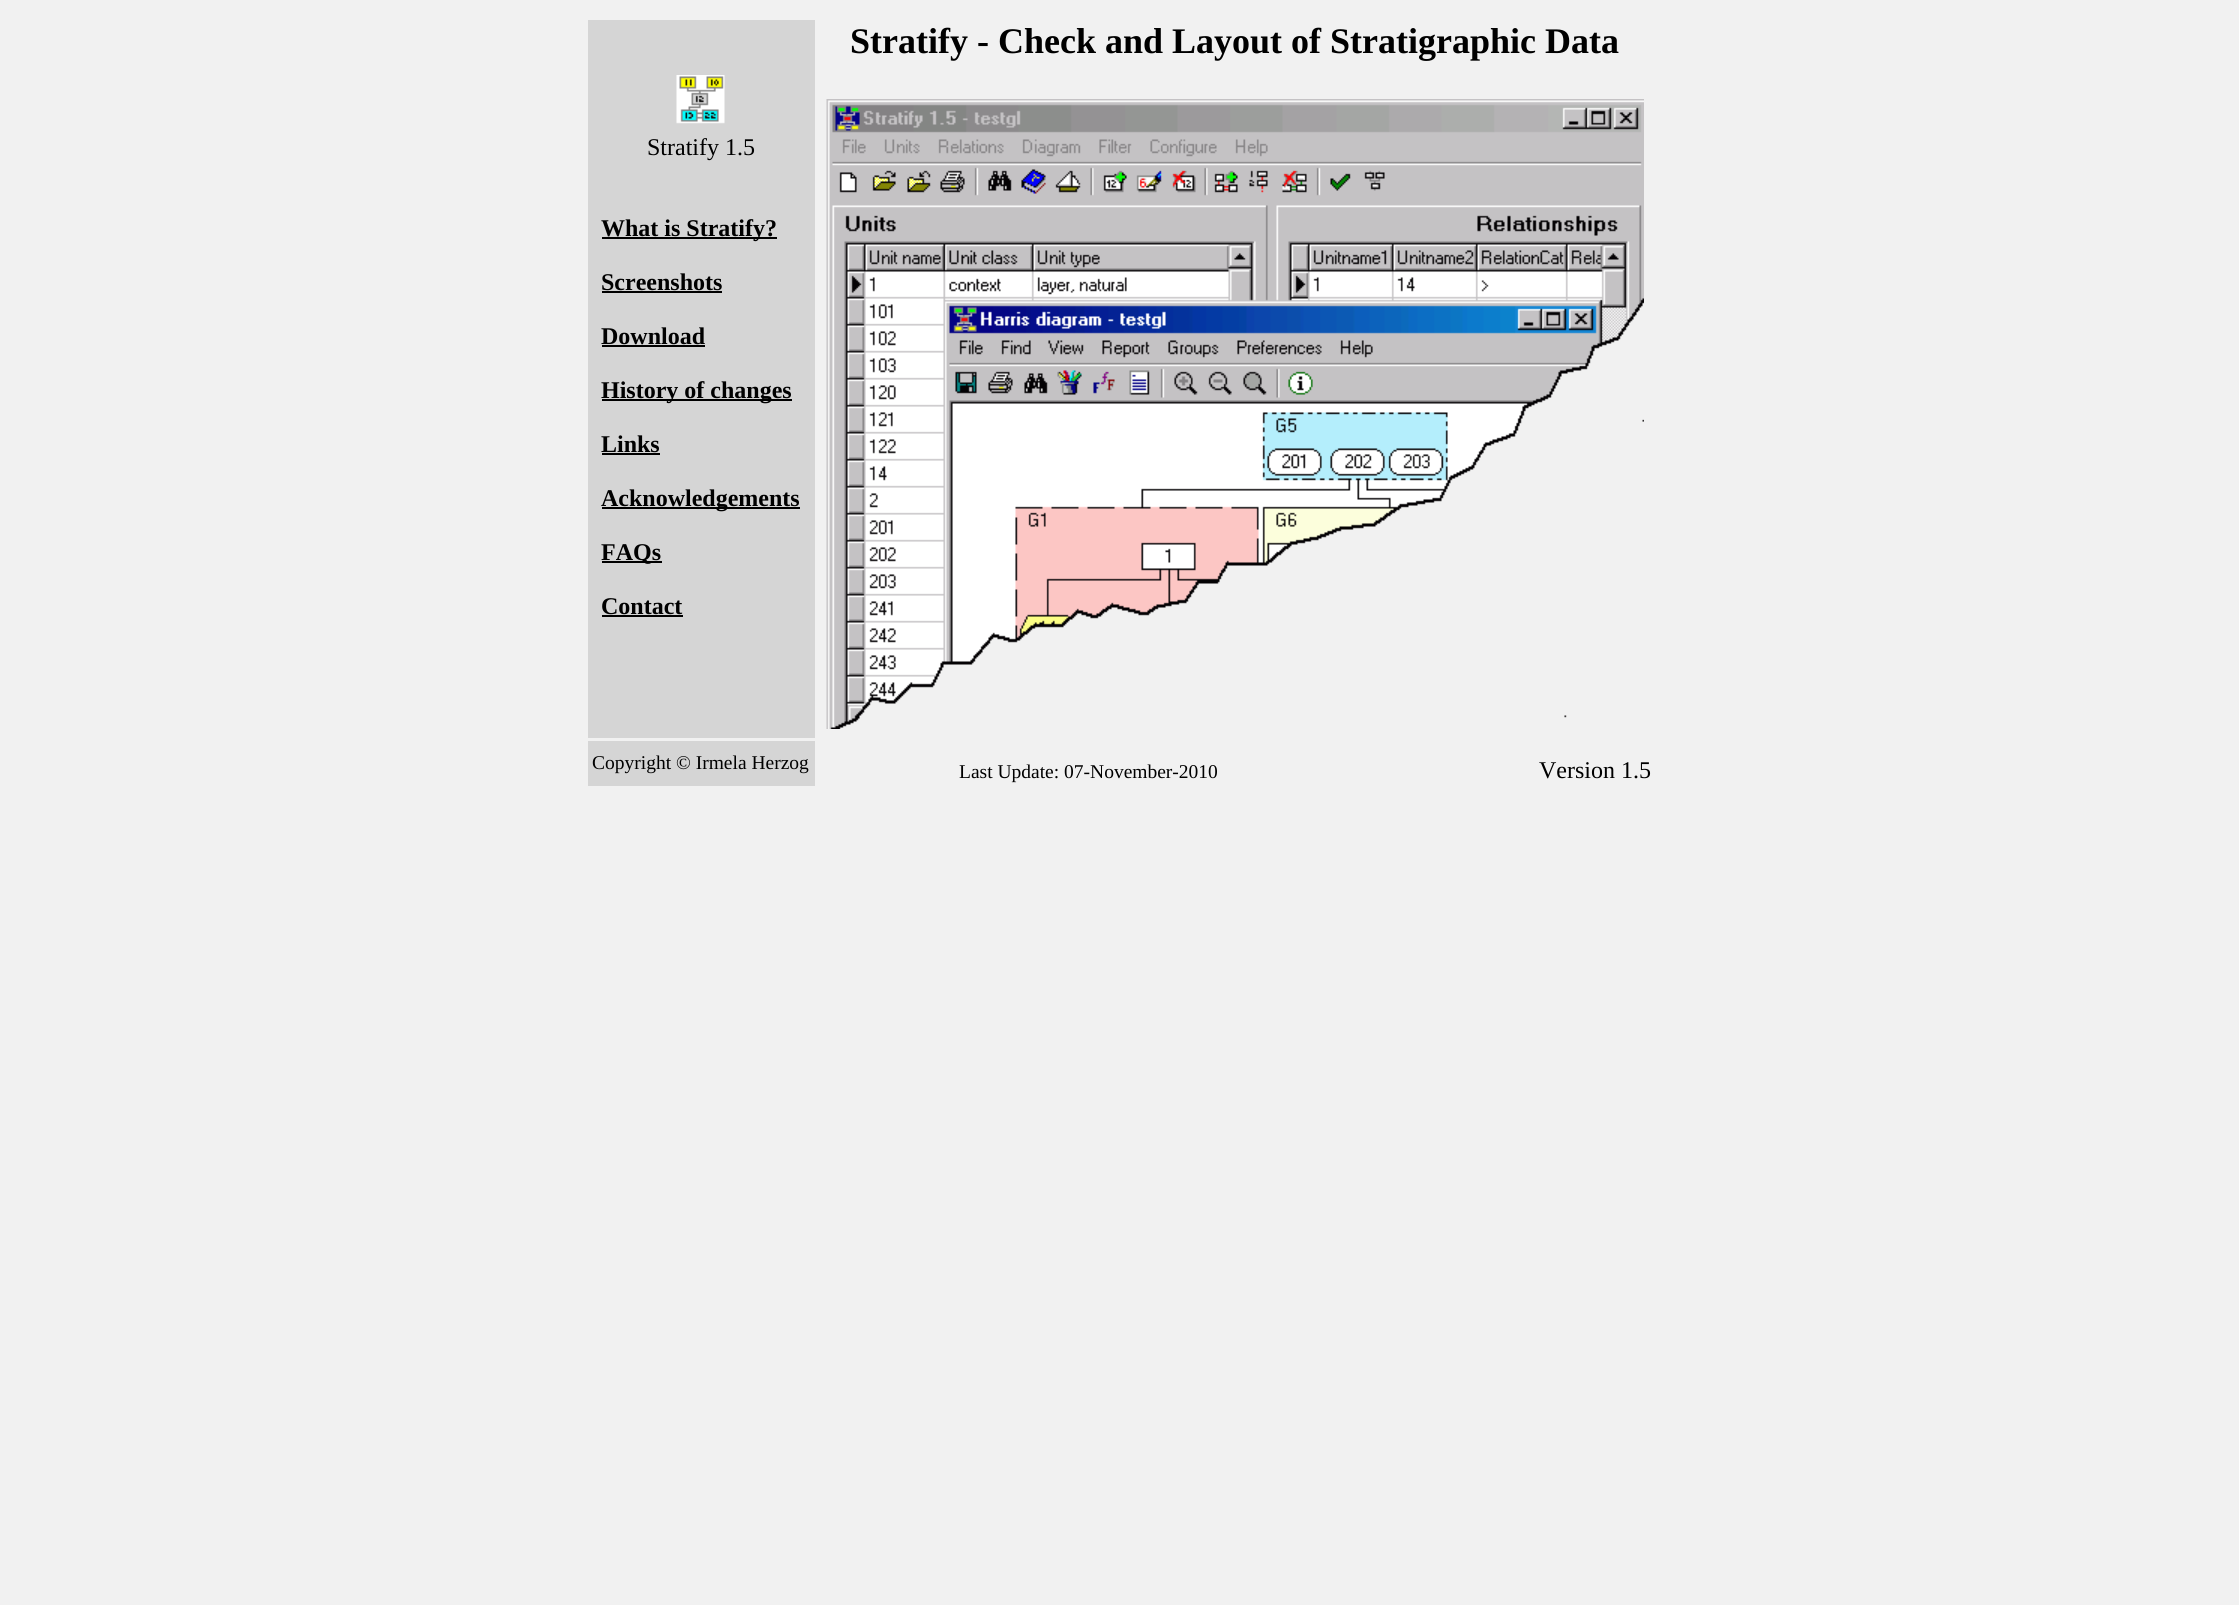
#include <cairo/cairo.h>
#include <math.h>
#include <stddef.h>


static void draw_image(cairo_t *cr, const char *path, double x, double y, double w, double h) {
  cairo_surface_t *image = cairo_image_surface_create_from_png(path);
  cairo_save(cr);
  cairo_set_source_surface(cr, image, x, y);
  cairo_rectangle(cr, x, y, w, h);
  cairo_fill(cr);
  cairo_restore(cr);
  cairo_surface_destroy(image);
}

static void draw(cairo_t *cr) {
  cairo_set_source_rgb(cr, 241 / 255.0, 241 / 255.0, 241 / 255.0);
  cairo_paint(cr);
  draw_image(cr, "images/1.png", 826, 99, 818, 630);
  cairo_set_source_rgb(cr, 213 / 255.0, 213 / 255.0, 213 / 255.0);
  cairo_rectangle(cr, 588, 20, 227, 718);
  cairo_fill(cr);
  draw_image(cr, "images/2.png", 676, 75, 49, 49);
  cairo_set_source_rgb(cr, 0, 0, 0);
  cairo_rectangle(cr, 602, 237, 175, 2);
  cairo_fill(cr);
  cairo_rectangle(cr, 602, 291, 120, 2);
  cairo_fill(cr);
  cairo_rectangle(cr, 602, 345, 103, 2);
  cairo_fill(cr);
  cairo_rectangle(cr, 602, 399, 190, 2);
  cairo_fill(cr);
  cairo_rectangle(cr, 602, 453, 58, 2);
  cairo_fill(cr);
  cairo_rectangle(cr, 602, 507, 198, 2);
  cairo_fill(cr);
  cairo_rectangle(cr, 602, 561, 60, 2);
  cairo_fill(cr);
  cairo_rectangle(cr, 602, 615, 81, 2);
  cairo_fill(cr);
  cairo_set_source_rgb(cr, 213 / 255.0, 213 / 255.0, 213 / 255.0);
  cairo_rectangle(cr, 588, 741, 227, 45);
  cairo_fill(cr);
  cairo_select_font_face(cr, "Liberation Serif", CAIRO_FONT_SLANT_NORMAL, CAIRO_FONT_WEIGHT_BOLD);
  cairo_set_font_size(cr, 36);
  cairo_set_source_rgb(cr, 0, 0, 0);
  cairo_move_to(cr, 850, 53);
  cairo_show_text(cr, "Stratify - Check and Layout of Stratigraphic Data");
  cairo_select_font_face(cr, "Liberation Serif", CAIRO_FONT_SLANT_NORMAL, CAIRO_FONT_WEIGHT_NORMAL);
  cairo_set_font_size(cr, 24);
  cairo_move_to(cr, 647, 155);
  cairo_show_text(cr, "Stratify 1.5");
  cairo_select_font_face(cr, "Liberation Serif", CAIRO_FONT_SLANT_NORMAL, CAIRO_FONT_WEIGHT_BOLD);
  cairo_move_to(cr, 601, 236);
  cairo_show_text(cr, "What is Stratify?");
  cairo_move_to(cr, 601, 290);
  cairo_show_text(cr, "Screenshots");
  cairo_move_to(cr, 601, 344);
  cairo_show_text(cr, "Download");
  cairo_move_to(cr, 601, 398);
  cairo_show_text(cr, "History of changes");
  cairo_move_to(cr, 601, 452);
  cairo_show_text(cr, "Links");
  cairo_move_to(cr, 601, 506);
  cairo_show_text(cr, "Acknowledgements");
  cairo_move_to(cr, 601, 560);
  cairo_show_text(cr, "FAQs");
  cairo_move_to(cr, 601, 614);
  cairo_show_text(cr, "Contact");
  cairo_select_font_face(cr, "Liberation Serif", CAIRO_FONT_SLANT_NORMAL, CAIRO_FONT_WEIGHT_NORMAL);
  cairo_set_font_size(cr, 19.5);
  cairo_move_to(cr, 592, 769);
  cairo_show_text(cr, "Copyright © Irmela Herzog");
  cairo_move_to(cr, 959, 778);
  cairo_show_text(cr, "Last Update: 07-November-2010");
  cairo_set_font_size(cr, 24);
  cairo_move_to(cr, 1539, 778);
  cairo_show_text(cr, "Version 1.5");
}

int main(void) {
  cairo_surface_t *surface = cairo_image_surface_create(CAIRO_FORMAT_RGB24, 2239, 1605);
  cairo_t *cr = cairo_create(surface);
  cairo_font_options_t *options = cairo_font_options_create();
  cairo_font_options_set_hint_metrics(options, CAIRO_HINT_METRICS_OFF);
  cairo_font_options_set_hint_style(options, CAIRO_HINT_STYLE_NONE);
  cairo_set_font_options(cr, options);
  cairo_set_miter_limit(cr, 4);
  draw(cr);
  cairo_surface_write_to_png(surface, "out.png");
  cairo_font_options_destroy(options);
  cairo_destroy(cr);
  cairo_surface_destroy(surface);
  return 0;
}
